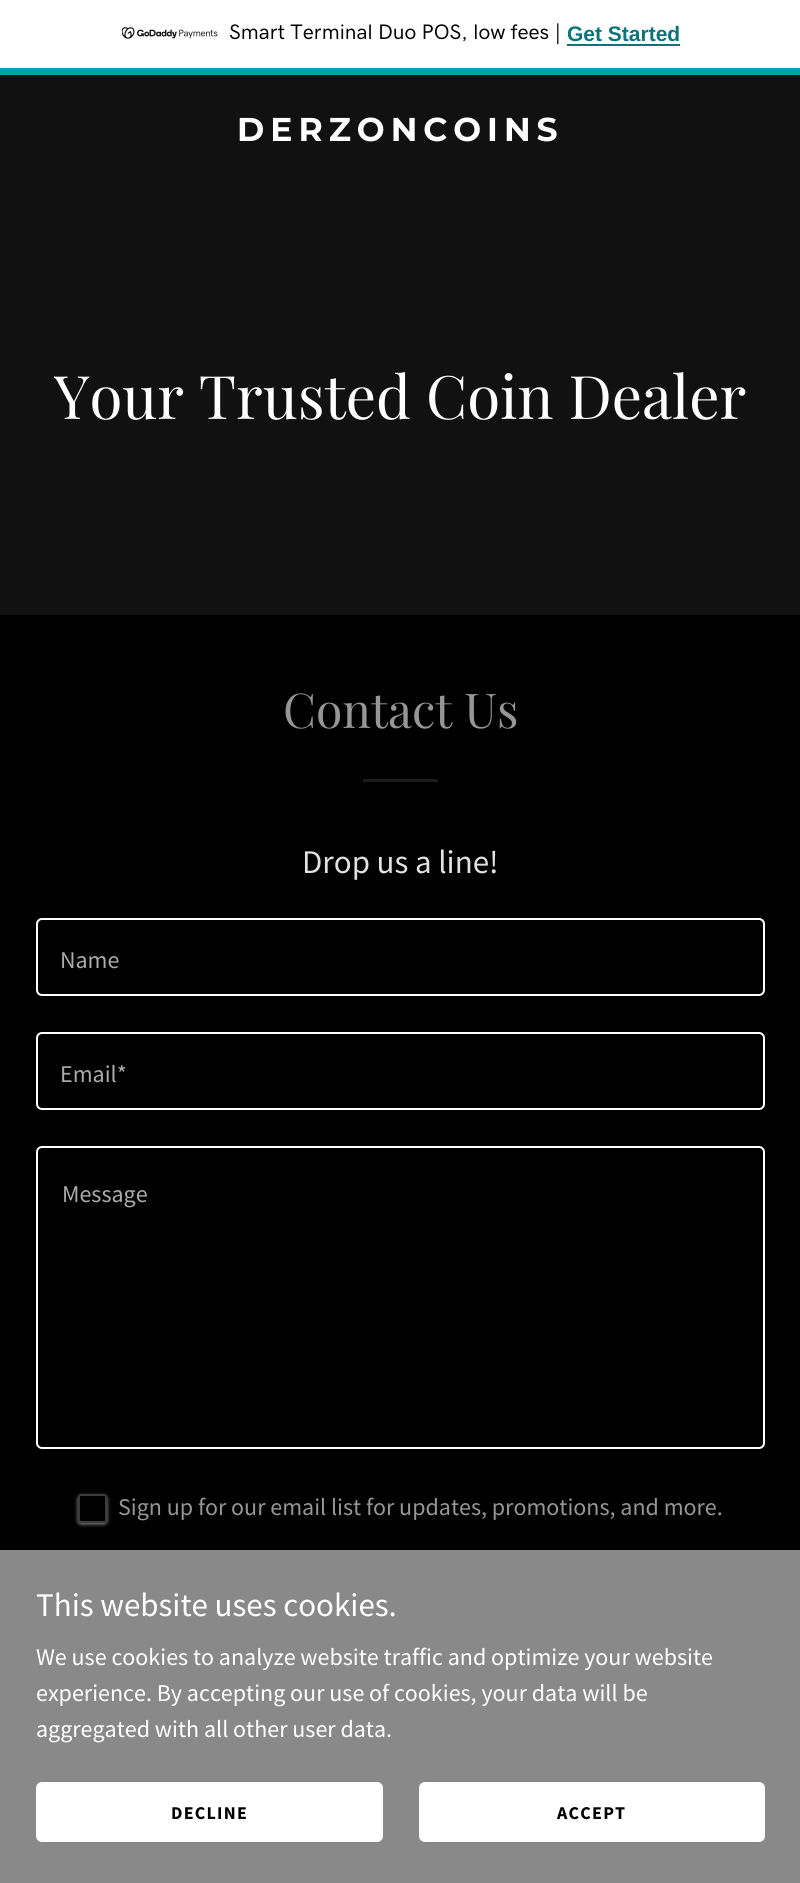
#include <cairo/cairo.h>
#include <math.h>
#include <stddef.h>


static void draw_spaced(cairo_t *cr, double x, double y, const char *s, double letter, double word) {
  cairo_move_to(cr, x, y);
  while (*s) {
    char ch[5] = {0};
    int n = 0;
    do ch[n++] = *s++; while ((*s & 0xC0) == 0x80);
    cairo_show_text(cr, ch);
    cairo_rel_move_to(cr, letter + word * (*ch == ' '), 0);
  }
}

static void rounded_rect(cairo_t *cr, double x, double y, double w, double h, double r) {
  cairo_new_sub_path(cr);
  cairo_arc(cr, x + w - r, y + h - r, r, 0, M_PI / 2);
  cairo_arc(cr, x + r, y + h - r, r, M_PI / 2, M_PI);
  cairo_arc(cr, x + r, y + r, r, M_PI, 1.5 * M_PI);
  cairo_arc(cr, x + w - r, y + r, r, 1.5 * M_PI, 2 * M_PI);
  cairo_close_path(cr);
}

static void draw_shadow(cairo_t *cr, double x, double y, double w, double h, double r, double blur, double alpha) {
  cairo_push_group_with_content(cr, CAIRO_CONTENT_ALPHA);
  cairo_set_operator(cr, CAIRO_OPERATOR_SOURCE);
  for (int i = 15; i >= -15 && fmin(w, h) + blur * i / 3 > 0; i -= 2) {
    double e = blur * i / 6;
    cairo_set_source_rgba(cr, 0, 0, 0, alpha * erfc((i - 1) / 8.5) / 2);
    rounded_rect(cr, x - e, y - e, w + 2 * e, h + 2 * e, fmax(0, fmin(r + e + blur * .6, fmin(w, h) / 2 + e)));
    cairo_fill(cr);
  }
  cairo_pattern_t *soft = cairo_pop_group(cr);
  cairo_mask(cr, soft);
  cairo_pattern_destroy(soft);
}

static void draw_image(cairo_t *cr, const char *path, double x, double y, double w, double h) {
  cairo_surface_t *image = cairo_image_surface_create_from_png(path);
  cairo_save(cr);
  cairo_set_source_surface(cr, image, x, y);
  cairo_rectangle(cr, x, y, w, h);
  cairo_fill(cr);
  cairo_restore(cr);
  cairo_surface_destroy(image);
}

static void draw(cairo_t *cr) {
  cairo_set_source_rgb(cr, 0, 0, 0);
  cairo_paint(cr);
  cairo_set_source_rgb(cr, 1, 1, 1);
  cairo_rectangle(cr, 0, 0, 800, 68);
  cairo_fill(cr);
  cairo_set_source_rgb(cr, 0, 164 / 255.0, 166 / 255.0);
  cairo_rectangle(cr, 0, 68, 800, 7);
  cairo_fill(cr);
  draw_image(cr, "images/1.png", 122, 27, 96, 12);
  cairo_set_source_rgb(cr, 9 / 255.0, 117 / 255.0, 122 / 255.0);
  cairo_rectangle(cr, 567, 44, 113, 2);
  cairo_fill(cr);
  cairo_set_source_rgb(cr, 17 / 255.0, 17 / 255.0, 17 / 255.0);
  cairo_rectangle(cr, 0, 75, 800, 540);
  cairo_fill(cr);
  cairo_set_source_rgb(cr, 27 / 255.0, 27 / 255.0, 27 / 255.0);
  cairo_rectangle(cr, 363, 779, 75, 3);
  cairo_fill(cr);
  rounded_rect(cr, 37, 919, 727, 76, 5);
  cairo_set_source_rgb(cr, 1, 1, 1);
  cairo_stroke(cr);
  rounded_rect(cr, 37, 1033, 727, 76, 5);
  cairo_stroke(cr);
  rounded_rect(cr, 37, 1147, 727, 301, 5);
  cairo_stroke(cr);
  cairo_save(cr);
  cairo_set_fill_rule(cr, CAIRO_FILL_RULE_EVEN_ODD);
  cairo_new_path(cr);
  cairo_move_to(cr, 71, 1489);
  cairo_line_to(cr, 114, 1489);
  cairo_line_to(cr, 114, 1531);
  cairo_line_to(cr, 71, 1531);
  cairo_close_path(cr);
  cairo_move_to(cr, 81, 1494);
  cairo_line_to(cr, 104, 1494);
  cairo_curve_to(cr, 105.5, 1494, 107, 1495.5, 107, 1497);
  cairo_line_to(cr, 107, 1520);
  cairo_curve_to(cr, 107, 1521.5, 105.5, 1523, 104, 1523);
  cairo_line_to(cr, 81, 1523);
  cairo_curve_to(cr, 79.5, 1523, 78, 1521.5, 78, 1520);
  cairo_line_to(cr, 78, 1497);
  cairo_curve_to(cr, 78, 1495.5, 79.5, 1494, 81, 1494);
  cairo_close_path(cr);
  cairo_clip(cr);
  cairo_set_source_rgb(cr, 150 / 255.0, 150 / 255.0, 150 / 255.0);
  draw_shadow(cr, 78, 1496, 29, 28, 3, 2, 1);
  cairo_restore(cr);
  rounded_rect(cr, 79, 1495, 27, 27, 2);
  cairo_set_source_rgba(cr, 119 / 255.0, 119 / 255.0, 119 / 255.0, 0.5);
  cairo_stroke(cr);
  cairo_set_source_rgb(cr, 137 / 255.0, 137 / 255.0, 137 / 255.0);
  cairo_rectangle(cr, 0, 1550, 800, 333);
  cairo_fill(cr);
  cairo_set_source_rgb(cr, 1, 1, 1);
  rounded_rect(cr, 36, 1782, 347, 60, 6);
  cairo_fill(cr);
  rounded_rect(cr, 419, 1782, 346, 60, 6);
  cairo_fill(cr);
  cairo_select_font_face(cr, "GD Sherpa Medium", CAIRO_FONT_SLANT_NORMAL, CAIRO_FONT_WEIGHT_NORMAL);
  cairo_set_font_size(cr, 21);
  cairo_set_source_rgb(cr, 0, 0, 0);
  cairo_move_to(cr, 229, 39);
  cairo_show_text(cr, "Smart Terminal Duo POS, low fees |");
  cairo_select_font_face(cr, "Liberation Sans", CAIRO_FONT_SLANT_NORMAL, CAIRO_FONT_WEIGHT_BOLD);
  cairo_set_source_rgb(cr, 9 / 255.0, 117 / 255.0, 122 / 255.0);
  cairo_move_to(cr, 567, 41);
  cairo_show_text(cr, "Get Started");
  cairo_select_font_face(cr, "Montserrat", CAIRO_FONT_SLANT_NORMAL, CAIRO_FONT_WEIGHT_BOLD);
  cairo_set_font_size(cr, 33);
  cairo_set_source_rgb(cr, 1, 1, 1);
  draw_spaced(cr, 237, 141, "DERZONCOINS", 6, 0);
  cairo_select_font_face(cr, "Playfair Display", CAIRO_FONT_SLANT_NORMAL, CAIRO_FONT_WEIGHT_NORMAL);
  cairo_set_font_size(cr, 60);
  cairo_move_to(cr, 54, 419);
  cairo_show_text(cr, "Your Trusted Coin Dealer");
  cairo_set_font_size(cr, 48);
  cairo_set_source_rgb(cr, 150 / 255.0, 150 / 255.0, 150 / 255.0);
  cairo_move_to(cr, 283, 728);
  cairo_show_text(cr, "Contact Us");
  cairo_select_font_face(cr, "Source Sans Pro", CAIRO_FONT_SLANT_NORMAL, CAIRO_FONT_WEIGHT_NORMAL);
  cairo_set_font_size(cr, 33);
  cairo_set_source_rgb(cr, 226 / 255.0, 226 / 255.0, 226 / 255.0);
  cairo_move_to(cr, 302, 873);
  cairo_show_text(cr, "Drop us a line!");
  cairo_set_font_size(cr, 24);
  cairo_set_source_rgb(cr, 171 / 255.0, 171 / 255.0, 171 / 255.0);
  cairo_move_to(cr, 60, 968);
  cairo_show_text(cr, "Name");
  cairo_move_to(cr, 60, 1082);
  cairo_show_text(cr, "Email*");
  cairo_move_to(cr, 62, 1202);
  cairo_show_text(cr, "Message");
  cairo_set_source_rgb(cr, 150 / 255.0, 150 / 255.0, 150 / 255.0);
  cairo_move_to(cr, 118, 1515);
  cairo_show_text(cr, "Sign up for our email list for updates, promotions, and more.");
  cairo_set_font_size(cr, 33);
  cairo_set_source_rgb(cr, 1, 1, 1);
  cairo_move_to(cr, 36, 1616);
  cairo_show_text(cr, "This website uses cookies.");
  cairo_set_font_size(cr, 24);
  cairo_move_to(cr, 36, 1665);
  cairo_show_text(cr, "We use cookies to analyze website traffic and optimize your website");
  cairo_move_to(cr, 36, 1701);
  cairo_show_text(cr, "experience. By accepting our use of cookies, your data will be");
  cairo_move_to(cr, 36, 1737);
  cairo_show_text(cr, "aggregated with all other user data.");
  cairo_select_font_face(cr, "Source Sans Pro", CAIRO_FONT_SLANT_NORMAL, CAIRO_FONT_WEIGHT_BOLD);
  cairo_set_font_size(cr, 18);
  cairo_set_source_rgb(cr, 0, 0, 0);
  draw_spaced(cr, 171, 1819, "DECLINE", 1.25, 0);
  draw_spaced(cr, 557, 1819, "ACCEPT", 1.25, 0);
}

int main(void) {
  cairo_surface_t *surface = cairo_image_surface_create(CAIRO_FORMAT_RGB24, 800, 1883);
  cairo_t *cr = cairo_create(surface);
  cairo_font_options_t *options = cairo_font_options_create();
  cairo_font_options_set_hint_metrics(options, CAIRO_HINT_METRICS_OFF);
  cairo_font_options_set_hint_style(options, CAIRO_HINT_STYLE_NONE);
  cairo_set_font_options(cr, options);
  cairo_set_miter_limit(cr, 4);
  draw(cr);
  cairo_surface_write_to_png(surface, "out.png");
  cairo_font_options_destroy(options);
  cairo_destroy(cr);
  cairo_surface_destroy(surface);
  return 0;
}
